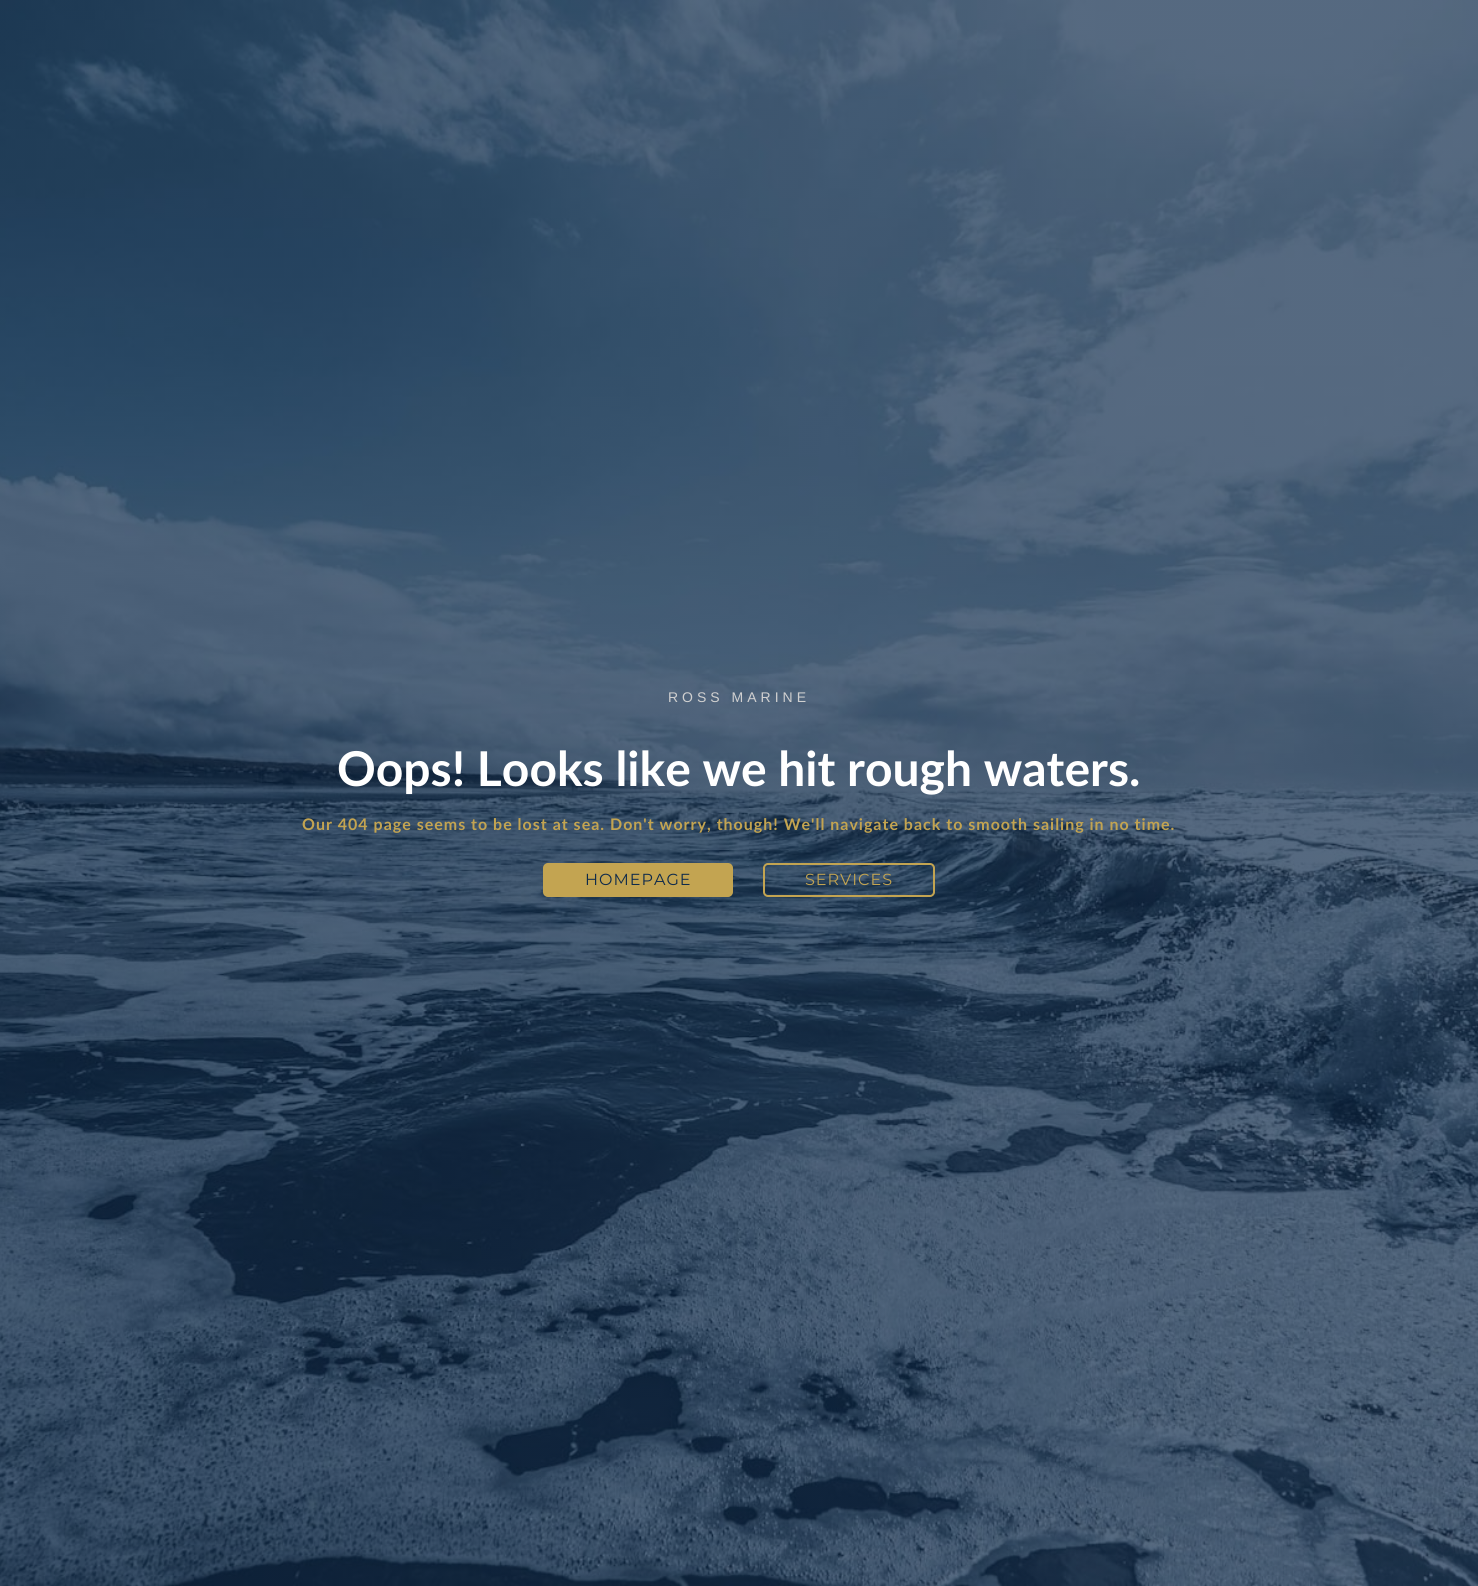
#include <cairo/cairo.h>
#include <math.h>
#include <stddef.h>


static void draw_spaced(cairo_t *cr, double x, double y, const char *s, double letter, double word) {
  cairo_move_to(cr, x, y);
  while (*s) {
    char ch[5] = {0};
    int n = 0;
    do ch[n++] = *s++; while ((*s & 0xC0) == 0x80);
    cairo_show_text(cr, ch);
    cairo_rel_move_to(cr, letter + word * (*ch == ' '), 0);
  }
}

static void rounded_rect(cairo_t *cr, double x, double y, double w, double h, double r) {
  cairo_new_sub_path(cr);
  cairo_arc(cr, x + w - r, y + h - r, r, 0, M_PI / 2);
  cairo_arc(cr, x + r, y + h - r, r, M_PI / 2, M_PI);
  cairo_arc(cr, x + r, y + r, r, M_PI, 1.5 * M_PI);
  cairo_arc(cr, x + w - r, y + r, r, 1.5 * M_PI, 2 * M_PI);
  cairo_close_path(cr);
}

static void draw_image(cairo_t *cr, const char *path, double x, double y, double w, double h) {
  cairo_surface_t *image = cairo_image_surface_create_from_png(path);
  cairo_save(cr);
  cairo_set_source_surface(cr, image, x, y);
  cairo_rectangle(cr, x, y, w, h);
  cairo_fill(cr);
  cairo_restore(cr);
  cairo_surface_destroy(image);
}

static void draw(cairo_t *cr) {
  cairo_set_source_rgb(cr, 1, 1, 1);
  cairo_paint(cr);
  draw_image(cr, "images/1.png", 0, 0, 1478, 1586);
  cairo_set_source_rgb(cr, 195 / 255.0, 164 / 255.0, 81 / 255.0);
  rounded_rect(cr, 544, 864, 188, 32, 4);
  cairo_fill_preserve(cr);
  cairo_stroke(cr);
  rounded_rect(cr, 764, 864, 170, 32, 4);
  cairo_stroke(cr);
  cairo_select_font_face(cr, "Liberation Sans", CAIRO_FONT_SLANT_NORMAL, CAIRO_FONT_WEIGHT_NORMAL);
  cairo_set_font_size(cr, 14);
  cairo_set_source_rgb(cr, 208 / 255.0, 208 / 255.0, 208 / 255.0);
  draw_spaced(cr, 668, 702, "ROSS MARINE", 4, 0);
  cairo_select_font_face(cr, "Lato", CAIRO_FONT_SLANT_NORMAL, CAIRO_FONT_WEIGHT_BOLD);
  cairo_set_font_size(cr, 48);
  cairo_set_source_rgb(cr, 1, 1, 1);
  cairo_move_to(cr, 337, 786);
  cairo_show_text(cr, "Oops! Looks like we hit rough waters.");
  cairo_set_font_size(cr, 16);
  cairo_set_source_rgb(cr, 195 / 255.0, 164 / 255.0, 81 / 255.0);
  draw_spaced(cr, 302, 830, "Our 404 page seems to be lost at sea. Don't worry, though! We'll navigate back to smooth sailing in no time.", 1, 0);
  cairo_select_font_face(cr, "Montserrat", CAIRO_FONT_SLANT_NORMAL, CAIRO_FONT_WEIGHT_NORMAL);
  cairo_set_source_rgb(cr, 14 / 255.0, 42 / 255.0, 75 / 255.0);
  draw_spaced(cr, 585, 885, "HOMEPAGE", 1, 0);
  cairo_set_source_rgb(cr, 195 / 255.0, 164 / 255.0, 81 / 255.0);
  draw_spaced(cr, 805, 885, "SERVICES", 1, 0);
}

int main(void) {
  cairo_surface_t *surface = cairo_image_surface_create(CAIRO_FORMAT_RGB24, 1478, 1586);
  cairo_t *cr = cairo_create(surface);
  cairo_font_options_t *options = cairo_font_options_create();
  cairo_font_options_set_hint_metrics(options, CAIRO_HINT_METRICS_OFF);
  cairo_font_options_set_hint_style(options, CAIRO_HINT_STYLE_NONE);
  cairo_set_font_options(cr, options);
  cairo_set_miter_limit(cr, 4);
  draw(cr);
  cairo_surface_write_to_png(surface, "out.png");
  cairo_font_options_destroy(options);
  cairo_destroy(cr);
  cairo_surface_destroy(surface);
  return 0;
}
